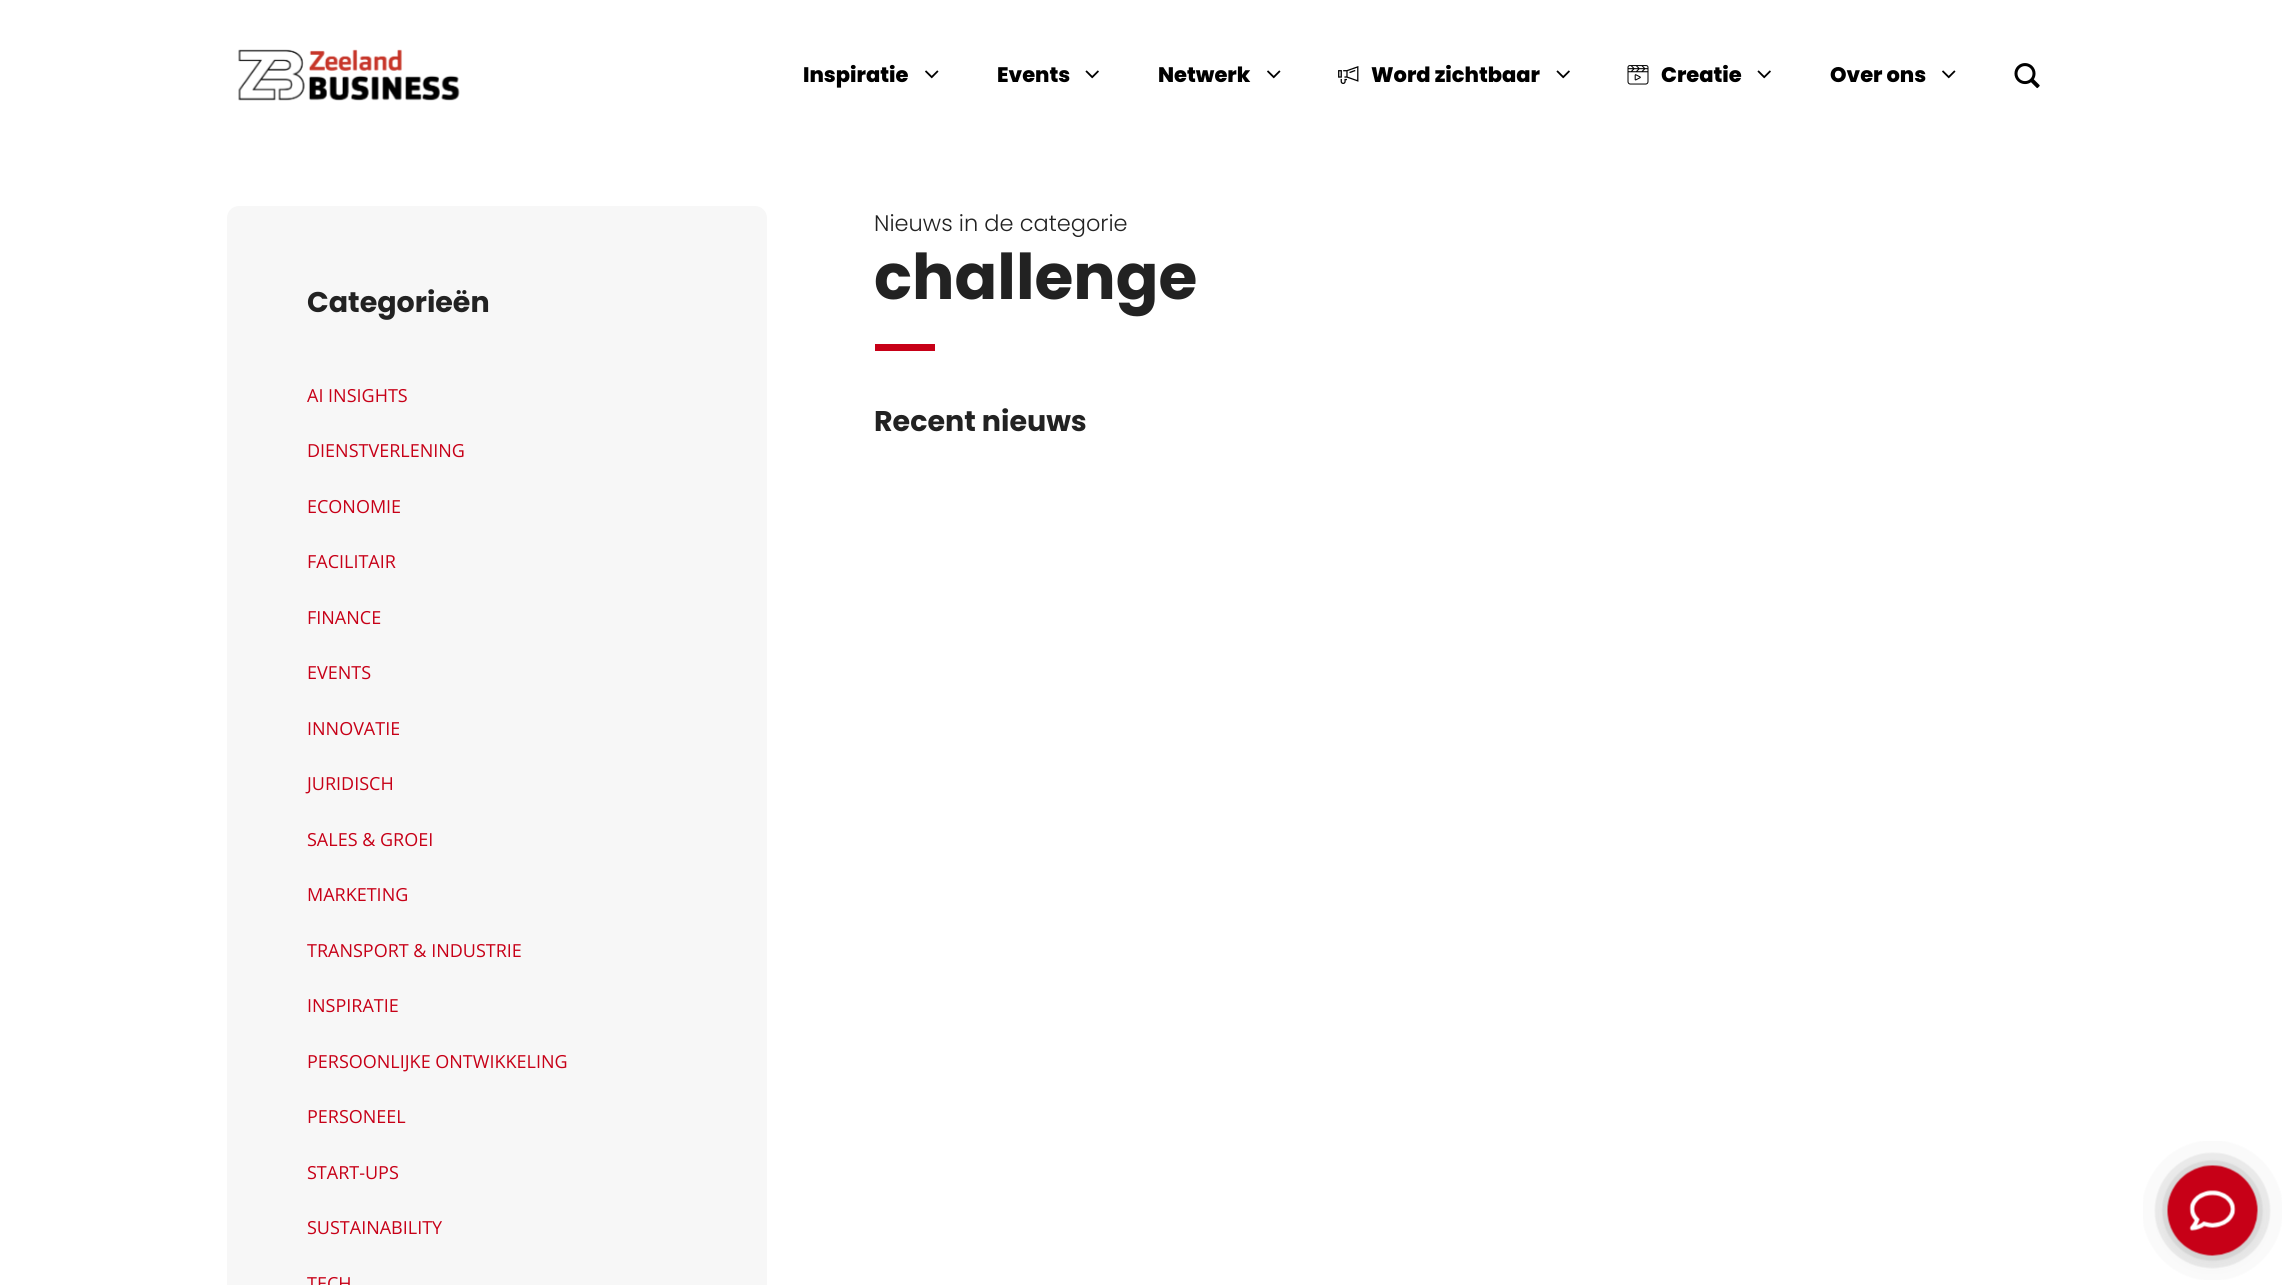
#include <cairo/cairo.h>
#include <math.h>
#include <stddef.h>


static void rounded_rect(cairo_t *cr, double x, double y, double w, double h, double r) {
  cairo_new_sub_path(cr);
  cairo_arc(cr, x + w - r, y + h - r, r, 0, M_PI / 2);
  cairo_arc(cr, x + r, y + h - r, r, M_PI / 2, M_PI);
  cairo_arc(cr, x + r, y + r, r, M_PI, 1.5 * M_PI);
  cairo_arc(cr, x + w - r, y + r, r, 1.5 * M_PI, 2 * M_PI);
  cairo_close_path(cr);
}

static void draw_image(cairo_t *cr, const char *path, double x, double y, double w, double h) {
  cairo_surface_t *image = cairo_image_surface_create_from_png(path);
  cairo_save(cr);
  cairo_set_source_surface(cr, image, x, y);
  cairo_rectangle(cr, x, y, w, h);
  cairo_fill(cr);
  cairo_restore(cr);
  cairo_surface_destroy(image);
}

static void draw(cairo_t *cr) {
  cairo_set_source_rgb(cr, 1, 1, 1);
  cairo_paint(cr);
  draw_image(cr, "images/1.png", 238, 49, 222, 52);
  draw_image(cr, "images/2.png", 925, 70, 14, 9);
  draw_image(cr, "images/3.png", 1085, 70, 14, 9);
  draw_image(cr, "images/2.png", 1267, 70, 14, 9);
  draw_image(cr, "images/4.png", 1338, 66, 21, 18);
  draw_image(cr, "images/3.png", 1556, 70, 14, 9);
  draw_image(cr, "images/5.png", 1627, 65, 22, 20);
  draw_image(cr, "images/3.png", 1757, 70, 14, 9);
  draw_image(cr, "images/2.png", 1942, 70, 14, 9);
  draw_image(cr, "images/6.png", 2014, 63, 26, 26);
  cairo_set_source_rgb(cr, 247 / 255.0, 247 / 255.0, 247 / 255.0);
  rounded_rect(cr, 227, 206, 540, 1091, 12);
  cairo_fill(cr);
  cairo_set_source_rgb(cr, 199 / 255.0, 0, 23 / 255.0);
  cairo_rectangle(cr, 875, 344, 60, 7);
  cairo_fill(cr);
  draw_image(cr, "images/7.png", 2143, 1141, 139, 139);
  cairo_select_font_face(cr, "Poppins ExtraBold", CAIRO_FONT_SLANT_NORMAL, CAIRO_FONT_WEIGHT_NORMAL);
  cairo_set_font_size(cr, 21);
  cairo_set_source_rgb(cr, 0, 0, 0);
  cairo_move_to(cr, 803, 82);
  cairo_show_text(cr, "Inspiratie");
  cairo_move_to(cr, 997, 82);
  cairo_show_text(cr, "Events");
  cairo_move_to(cr, 1158, 82);
  cairo_show_text(cr, "Netwerk");
  cairo_move_to(cr, 1371, 82);
  cairo_show_text(cr, "Word zichtbaar");
  cairo_move_to(cr, 1661, 82);
  cairo_show_text(cr, "Creatie");
  cairo_move_to(cr, 1830, 82);
  cairo_show_text(cr, "Over ons");
  cairo_select_font_face(cr, "Poppins", CAIRO_FONT_SLANT_NORMAL, CAIRO_FONT_WEIGHT_BOLD);
  cairo_set_font_size(cr, 28.5);
  cairo_set_source_rgb(cr, 34 / 255.0, 34 / 255.0, 34 / 255.0);
  cairo_move_to(cr, 307, 312);
  cairo_show_text(cr, "Categorieën");
  cairo_select_font_face(cr, "Open Sans", CAIRO_FONT_SLANT_NORMAL, CAIRO_FONT_WEIGHT_NORMAL);
  cairo_set_font_size(cr, 18);
  cairo_set_source_rgb(cr, 199 / 255.0, 0, 23 / 255.0);
  cairo_move_to(cr, 307, 402);
  cairo_show_text(cr, "AI INSIGHTS");
  cairo_move_to(cr, 307, 457);
  cairo_show_text(cr, "DIENSTVERLENING");
  cairo_move_to(cr, 307, 513);
  cairo_show_text(cr, "ECONOMIE");
  cairo_move_to(cr, 307, 568);
  cairo_show_text(cr, "FACILITAIR");
  cairo_move_to(cr, 307, 624);
  cairo_show_text(cr, "FINANCE");
  cairo_move_to(cr, 307, 679);
  cairo_show_text(cr, "EVENTS");
  cairo_move_to(cr, 307, 735);
  cairo_show_text(cr, "INNOVATIE");
  cairo_move_to(cr, 307, 790);
  cairo_show_text(cr, "JURIDISCH");
  cairo_move_to(cr, 307, 846);
  cairo_show_text(cr, "SALES & GROEI");
  cairo_move_to(cr, 307, 901);
  cairo_show_text(cr, "MARKETING");
  cairo_move_to(cr, 307, 957);
  cairo_show_text(cr, "TRANSPORT & INDUSTRIE");
  cairo_move_to(cr, 307, 1012);
  cairo_show_text(cr, "INSPIRATIE");
  cairo_move_to(cr, 307, 1068);
  cairo_show_text(cr, "PERSOONLIJKE ONTWIKKELING");
  cairo_move_to(cr, 307, 1123);
  cairo_show_text(cr, "PERSONEEL");
  cairo_move_to(cr, 307, 1179);
  cairo_show_text(cr, "START-UPS");
  cairo_move_to(cr, 307, 1234);
  cairo_show_text(cr, "SUSTAINABILITY");
  cairo_move_to(cr, 307, 1290);
  cairo_show_text(cr, "TECH");
  cairo_select_font_face(cr, "Poppins Light", CAIRO_FONT_SLANT_NORMAL, CAIRO_FONT_WEIGHT_NORMAL);
  cairo_set_font_size(cr, 22.5);
  cairo_set_source_rgb(cr, 34 / 255.0, 34 / 255.0, 34 / 255.0);
  cairo_move_to(cr, 874, 231);
  cairo_show_text(cr, "Nieuws in de categorie");
  cairo_select_font_face(cr, "Poppins", CAIRO_FONT_SLANT_NORMAL, CAIRO_FONT_WEIGHT_BOLD);
  cairo_set_font_size(cr, 63);
  cairo_move_to(cr, 874, 299);
  cairo_show_text(cr, "challenge");
  cairo_set_font_size(cr, 28.5);
  cairo_move_to(cr, 874, 431);
  cairo_show_text(cr, "Recent nieuws");
}

int main(void) {
  cairo_surface_t *surface = cairo_image_surface_create(CAIRO_FORMAT_RGB24, 2287, 1285);
  cairo_t *cr = cairo_create(surface);
  cairo_font_options_t *options = cairo_font_options_create();
  cairo_font_options_set_hint_metrics(options, CAIRO_HINT_METRICS_OFF);
  cairo_font_options_set_hint_style(options, CAIRO_HINT_STYLE_NONE);
  cairo_set_font_options(cr, options);
  cairo_set_miter_limit(cr, 4);
  draw(cr);
  cairo_surface_write_to_png(surface, "out.png");
  cairo_font_options_destroy(options);
  cairo_destroy(cr);
  cairo_surface_destroy(surface);
  return 0;
}
